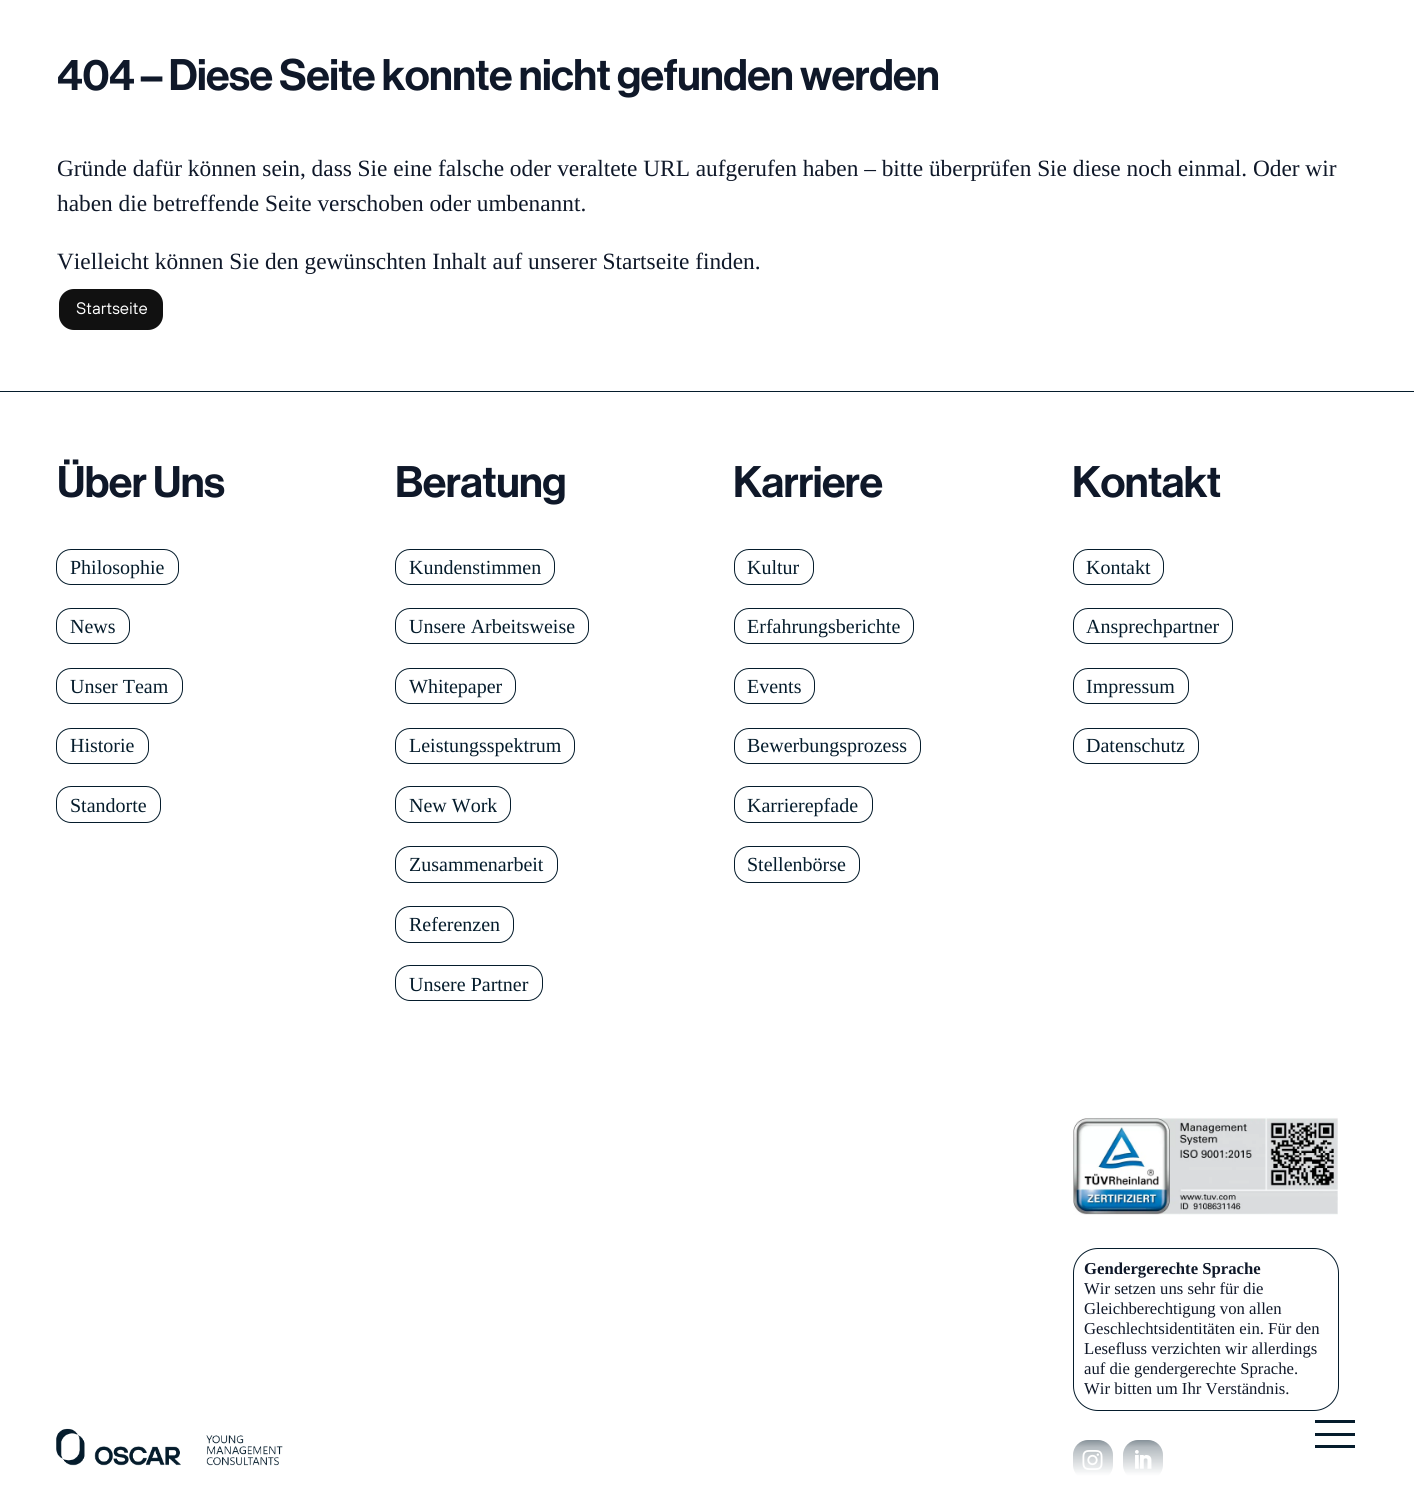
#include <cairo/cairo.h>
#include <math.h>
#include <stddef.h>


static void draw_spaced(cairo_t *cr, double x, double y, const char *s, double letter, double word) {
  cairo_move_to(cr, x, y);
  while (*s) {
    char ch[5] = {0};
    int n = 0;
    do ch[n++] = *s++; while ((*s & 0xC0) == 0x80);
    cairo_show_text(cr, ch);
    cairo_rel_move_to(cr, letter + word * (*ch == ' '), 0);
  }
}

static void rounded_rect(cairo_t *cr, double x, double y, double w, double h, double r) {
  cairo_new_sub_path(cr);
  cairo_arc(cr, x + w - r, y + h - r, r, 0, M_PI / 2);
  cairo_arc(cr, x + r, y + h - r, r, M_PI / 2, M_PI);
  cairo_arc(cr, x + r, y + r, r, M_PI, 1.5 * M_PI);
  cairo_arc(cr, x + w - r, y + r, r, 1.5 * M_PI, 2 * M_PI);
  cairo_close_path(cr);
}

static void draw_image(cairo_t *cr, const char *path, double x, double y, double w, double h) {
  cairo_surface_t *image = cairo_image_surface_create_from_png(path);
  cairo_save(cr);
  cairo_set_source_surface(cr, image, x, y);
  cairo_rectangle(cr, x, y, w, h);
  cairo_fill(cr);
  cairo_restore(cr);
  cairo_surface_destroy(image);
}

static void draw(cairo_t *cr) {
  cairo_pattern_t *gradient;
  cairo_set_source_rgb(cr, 1, 1, 1);
  cairo_paint(cr);
  cairo_set_source_rgb(cr, 17 / 255.0, 17 / 255.0, 17 / 255.0);
  rounded_rect(cr, 57.5, 287.5, 107, 44, 16.5);
  cairo_fill_preserve(cr);
  cairo_set_source_rgb(cr, 1, 1, 1);
  cairo_set_line_width(cr, 3);
  cairo_stroke(cr);
  cairo_set_source_rgb(cr, 5 / 255.0, 28 / 255.0, 44 / 255.0);
  cairo_rectangle(cr, 0, 391, 1414, 1);
  cairo_fill(cr);
  rounded_rect(cr, 56.5, 549.5, 122, 35, 14.5);
  cairo_set_line_width(cr, 1);
  cairo_stroke(cr);
  rounded_rect(cr, 56.5, 608.5, 73, 35, 14.5);
  cairo_stroke(cr);
  rounded_rect(cr, 56.5, 668.5, 126, 35, 14.5);
  cairo_stroke(cr);
  rounded_rect(cr, 56.5, 728.5, 92, 35, 14.5);
  cairo_stroke(cr);
  rounded_rect(cr, 56.5, 786.5, 104, 36, 14.5);
  cairo_stroke(cr);
  rounded_rect(cr, 395.5, 549.5, 159, 35, 14.5);
  cairo_stroke(cr);
  rounded_rect(cr, 395.5, 608.5, 193, 35, 14.5);
  cairo_stroke(cr);
  rounded_rect(cr, 395.5, 668.5, 120, 35, 14.5);
  cairo_stroke(cr);
  rounded_rect(cr, 395.5, 728.5, 179, 35, 14.5);
  cairo_stroke(cr);
  rounded_rect(cr, 395.5, 786.5, 115, 36, 14.5);
  cairo_stroke(cr);
  rounded_rect(cr, 395.5, 846.5, 162, 36, 14.5);
  cairo_stroke(cr);
  rounded_rect(cr, 395.5, 906.5, 118, 36, 14.5);
  cairo_stroke(cr);
  rounded_rect(cr, 395.5, 965.5, 147, 35, 14.5);
  cairo_stroke(cr);
  rounded_rect(cr, 734.5, 549.5, 79, 35, 14.5);
  cairo_stroke(cr);
  rounded_rect(cr, 734.5, 608.5, 179, 35, 14.5);
  cairo_stroke(cr);
  rounded_rect(cr, 734.5, 668.5, 80, 35, 14.5);
  cairo_stroke(cr);
  rounded_rect(cr, 734.5, 728.5, 186, 35, 14.5);
  cairo_stroke(cr);
  rounded_rect(cr, 734.5, 786.5, 138, 36, 14.5);
  cairo_stroke(cr);
  rounded_rect(cr, 734.5, 846.5, 125, 36, 14.5);
  cairo_stroke(cr);
  rounded_rect(cr, 1073.5, 549.5, 90, 35, 14.5);
  cairo_stroke(cr);
  rounded_rect(cr, 1073.5, 608.5, 159, 35, 14.5);
  cairo_stroke(cr);
  rounded_rect(cr, 1073.5, 668.5, 115, 35, 14.5);
  cairo_stroke(cr);
  rounded_rect(cr, 1073.5, 728.5, 125, 35, 14.5);
  cairo_stroke(cr);
  draw_image(cr, "images/1.png", 1073, 1117, 265, 98);
  rounded_rect(cr, 1073.5, 1248.5, 265, 162, 24.5);
  cairo_stroke(cr);
  rounded_rect(cr, 1073, 1440, 40, 40, 15);
  cairo_fill(cr);
  draw_image(cr, "images/2.png", 1082, 1450, 21, 20);
  rounded_rect(cr, 1123, 1440, 40, 40, 15);
  cairo_fill(cr);
  draw_image(cr, "images/3.png", 1135, 1450, 17, 19);
  draw_image(cr, "images/4.png", 56, 1428, 227, 38);
  gradient = cairo_pattern_create_linear(708, 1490, 708, 1419);
  cairo_pattern_add_color_stop_rgba(gradient, 0.2, 1, 1, 1, 1);
  cairo_pattern_add_color_stop_rgba(gradient, 0.6, 1, 1, 1, 0.7);
  cairo_pattern_add_color_stop_rgba(gradient, 1, 1, 1, 1, 0);
  cairo_set_source(cr, gradient);
  cairo_pattern_destroy(gradient);
  cairo_rectangle(cr, 1073, 1440, 60, 40);
  cairo_fill(cr);
  gradient = cairo_pattern_create_linear(1274, 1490, 1274, 1419);
  cairo_pattern_add_color_stop_rgba(gradient, 0.2, 1, 1, 1, 1);
  cairo_pattern_add_color_stop_rgba(gradient, 0.6, 1, 1, 1, 0.7);
  cairo_pattern_add_color_stop_rgba(gradient, 1, 1, 1, 1, 0);
  cairo_set_source(cr, gradient);
  cairo_pattern_destroy(gradient);
  cairo_rectangle(cr, 1133, 1440, 30, 40);
  cairo_fill(cr);
  cairo_set_source_rgb(cr, 5 / 255.0, 28 / 255.0, 44 / 255.0);
  cairo_rectangle(cr, 1315, 1420, 40, 3);
  cairo_fill(cr);
  cairo_rectangle(cr, 1315, 1433, 40, 3);
  cairo_fill(cr);
  cairo_rectangle(cr, 1315, 1445, 40, 3);
  cairo_fill(cr);
  cairo_select_font_face(cr, "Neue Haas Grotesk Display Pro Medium", CAIRO_FONT_SLANT_NORMAL, CAIRO_FONT_WEIGHT_NORMAL);
  cairo_set_font_size(cr, 43.3);
  cairo_set_source_rgb(cr, 15 / 255.0, 24 / 255.0, 41 / 255.0);
  draw_spaced(cr, 57, 90, "404 – Diese Seite konnte nicht gefunden werden", -0.6, 0);
  cairo_select_font_face(cr, "Liberation Serif", CAIRO_FONT_SLANT_NORMAL, CAIRO_FONT_WEIGHT_NORMAL);
  cairo_set_font_size(cr, 23.33);
  cairo_move_to(cr, 57, 176);
  cairo_show_text(cr, "Gründe dafür können sein, dass Sie eine falsche oder veraltete URL aufgerufen haben – bitte überprüfen Sie diese noch einmal. Oder wir");
  cairo_move_to(cr, 57, 211);
  cairo_show_text(cr, "haben die betreffende Seite verschoben oder umbenannt.");
  cairo_move_to(cr, 57, 269);
  cairo_show_text(cr, "Vielleicht können Sie den gewünschten Inhalt auf unserer Startseite finden.");
  cairo_select_font_face(cr, "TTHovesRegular", CAIRO_FONT_SLANT_NORMAL, CAIRO_FONT_WEIGHT_NORMAL);
  cairo_set_font_size(cr, 16.7);
  cairo_set_source_rgb(cr, 1, 1, 1);
  cairo_move_to(cr, 76, 314);
  cairo_show_text(cr, "Startseite");
  cairo_select_font_face(cr, "Neue Haas Grotesk Display Pro Medium", CAIRO_FONT_SLANT_NORMAL, CAIRO_FONT_WEIGHT_NORMAL);
  cairo_set_font_size(cr, 43.3);
  cairo_set_source_rgb(cr, 15 / 255.0, 24 / 255.0, 41 / 255.0);
  draw_spaced(cr, 57, 497, "Über Uns", -0.6, 0);
  cairo_select_font_face(cr, "Liberation Serif", CAIRO_FONT_SLANT_NORMAL, CAIRO_FONT_WEIGHT_NORMAL);
  cairo_set_font_size(cr, 20);
  cairo_set_source_rgb(cr, 5 / 255.0, 28 / 255.0, 44 / 255.0);
  cairo_move_to(cr, 70, 574);
  cairo_show_text(cr, "Philosophie");
  cairo_move_to(cr, 70, 633);
  cairo_show_text(cr, "News");
  cairo_move_to(cr, 70, 693);
  cairo_show_text(cr, "Unser Team");
  cairo_move_to(cr, 70, 752);
  cairo_show_text(cr, "Historie");
  cairo_move_to(cr, 70, 812);
  cairo_show_text(cr, "Standorte");
  cairo_select_font_face(cr, "Neue Haas Grotesk Display Pro Medium", CAIRO_FONT_SLANT_NORMAL, CAIRO_FONT_WEIGHT_NORMAL);
  cairo_set_font_size(cr, 43.3);
  cairo_set_source_rgb(cr, 15 / 255.0, 24 / 255.0, 41 / 255.0);
  draw_spaced(cr, 395, 497, "Beratung", -0.6, 0);
  cairo_select_font_face(cr, "Liberation Serif", CAIRO_FONT_SLANT_NORMAL, CAIRO_FONT_WEIGHT_NORMAL);
  cairo_set_font_size(cr, 20);
  cairo_set_source_rgb(cr, 5 / 255.0, 28 / 255.0, 44 / 255.0);
  cairo_move_to(cr, 409, 574);
  cairo_show_text(cr, "Kundenstimmen");
  cairo_move_to(cr, 409, 633);
  cairo_show_text(cr, "Unsere Arbeitsweise");
  cairo_move_to(cr, 409, 693);
  cairo_show_text(cr, "Whitepaper");
  cairo_move_to(cr, 409, 752);
  cairo_show_text(cr, "Leistungsspektrum");
  cairo_move_to(cr, 409, 812);
  cairo_show_text(cr, "New Work");
  cairo_move_to(cr, 409, 871);
  cairo_show_text(cr, "Zusammenarbeit");
  cairo_move_to(cr, 409, 931);
  cairo_show_text(cr, "Referenzen");
  cairo_move_to(cr, 409, 991);
  cairo_show_text(cr, "Unsere Partner");
  cairo_select_font_face(cr, "Neue Haas Grotesk Display Pro Medium", CAIRO_FONT_SLANT_NORMAL, CAIRO_FONT_WEIGHT_NORMAL);
  cairo_set_font_size(cr, 43.3);
  cairo_set_source_rgb(cr, 15 / 255.0, 24 / 255.0, 41 / 255.0);
  draw_spaced(cr, 733, 497, "Karriere", -0.6, 0);
  cairo_select_font_face(cr, "Liberation Serif", CAIRO_FONT_SLANT_NORMAL, CAIRO_FONT_WEIGHT_NORMAL);
  cairo_set_font_size(cr, 20);
  cairo_set_source_rgb(cr, 5 / 255.0, 28 / 255.0, 44 / 255.0);
  cairo_move_to(cr, 747, 574);
  cairo_show_text(cr, "Kultur");
  cairo_move_to(cr, 747, 633);
  cairo_show_text(cr, "Erfahrungsberichte");
  cairo_move_to(cr, 747, 693);
  cairo_show_text(cr, "Events");
  cairo_move_to(cr, 747, 752);
  cairo_show_text(cr, "Bewerbungsprozess");
  cairo_move_to(cr, 747, 812);
  cairo_show_text(cr, "Karrierepfade");
  cairo_move_to(cr, 747, 871);
  cairo_show_text(cr, "Stellenbörse");
  cairo_select_font_face(cr, "Neue Haas Grotesk Display Pro Medium", CAIRO_FONT_SLANT_NORMAL, CAIRO_FONT_WEIGHT_NORMAL);
  cairo_set_font_size(cr, 43.3);
  cairo_set_source_rgb(cr, 15 / 255.0, 24 / 255.0, 41 / 255.0);
  draw_spaced(cr, 1072, 497, "Kontakt", -0.6, 0);
  cairo_select_font_face(cr, "Liberation Serif", CAIRO_FONT_SLANT_NORMAL, CAIRO_FONT_WEIGHT_NORMAL);
  cairo_set_font_size(cr, 20);
  cairo_set_source_rgb(cr, 5 / 255.0, 28 / 255.0, 44 / 255.0);
  cairo_move_to(cr, 1086, 574);
  cairo_show_text(cr, "Kontakt");
  cairo_move_to(cr, 1086, 633);
  cairo_show_text(cr, "Ansprechpartner");
  cairo_move_to(cr, 1086, 693);
  cairo_show_text(cr, "Impressum");
  cairo_move_to(cr, 1086, 752);
  cairo_show_text(cr, "Datenschutz");
  cairo_select_font_face(cr, "Liberation Serif", CAIRO_FONT_SLANT_NORMAL, CAIRO_FONT_WEIGHT_BOLD);
  cairo_set_font_size(cr, 16.7);
  cairo_set_source_rgb(cr, 15 / 255.0, 24 / 255.0, 41 / 255.0);
  cairo_move_to(cr, 1084, 1274);
  cairo_show_text(cr, "Gendergerechte Sprache");
  cairo_select_font_face(cr, "Liberation Serif", CAIRO_FONT_SLANT_NORMAL, CAIRO_FONT_WEIGHT_NORMAL);
  cairo_move_to(cr, 1084, 1294);
  cairo_show_text(cr, "Wir setzen uns sehr für die");
  cairo_move_to(cr, 1084, 1314);
  cairo_show_text(cr, "Gleichberechtigung von allen");
  cairo_move_to(cr, 1084, 1334);
  cairo_show_text(cr, "Geschlechtsidentitäten ein. Für den");
  cairo_move_to(cr, 1084, 1354);
  cairo_show_text(cr, "Lesefluss verzichten wir allerdings");
  cairo_move_to(cr, 1084, 1374);
  cairo_show_text(cr, "auf die gendergerechte Sprache.");
  cairo_move_to(cr, 1084, 1394);
  cairo_show_text(cr, "Wir bitten um Ihr Verständnis.");
}

int main(void) {
  cairo_surface_t *surface = cairo_image_surface_create(CAIRO_FORMAT_RGB24, 1414, 1489);
  cairo_t *cr = cairo_create(surface);
  cairo_font_options_t *options = cairo_font_options_create();
  cairo_font_options_set_hint_metrics(options, CAIRO_HINT_METRICS_OFF);
  cairo_font_options_set_hint_style(options, CAIRO_HINT_STYLE_NONE);
  cairo_set_font_options(cr, options);
  cairo_set_miter_limit(cr, 4);
  draw(cr);
  cairo_surface_write_to_png(surface, "out.png");
  cairo_font_options_destroy(options);
  cairo_destroy(cr);
  cairo_surface_destroy(surface);
  return 0;
}
